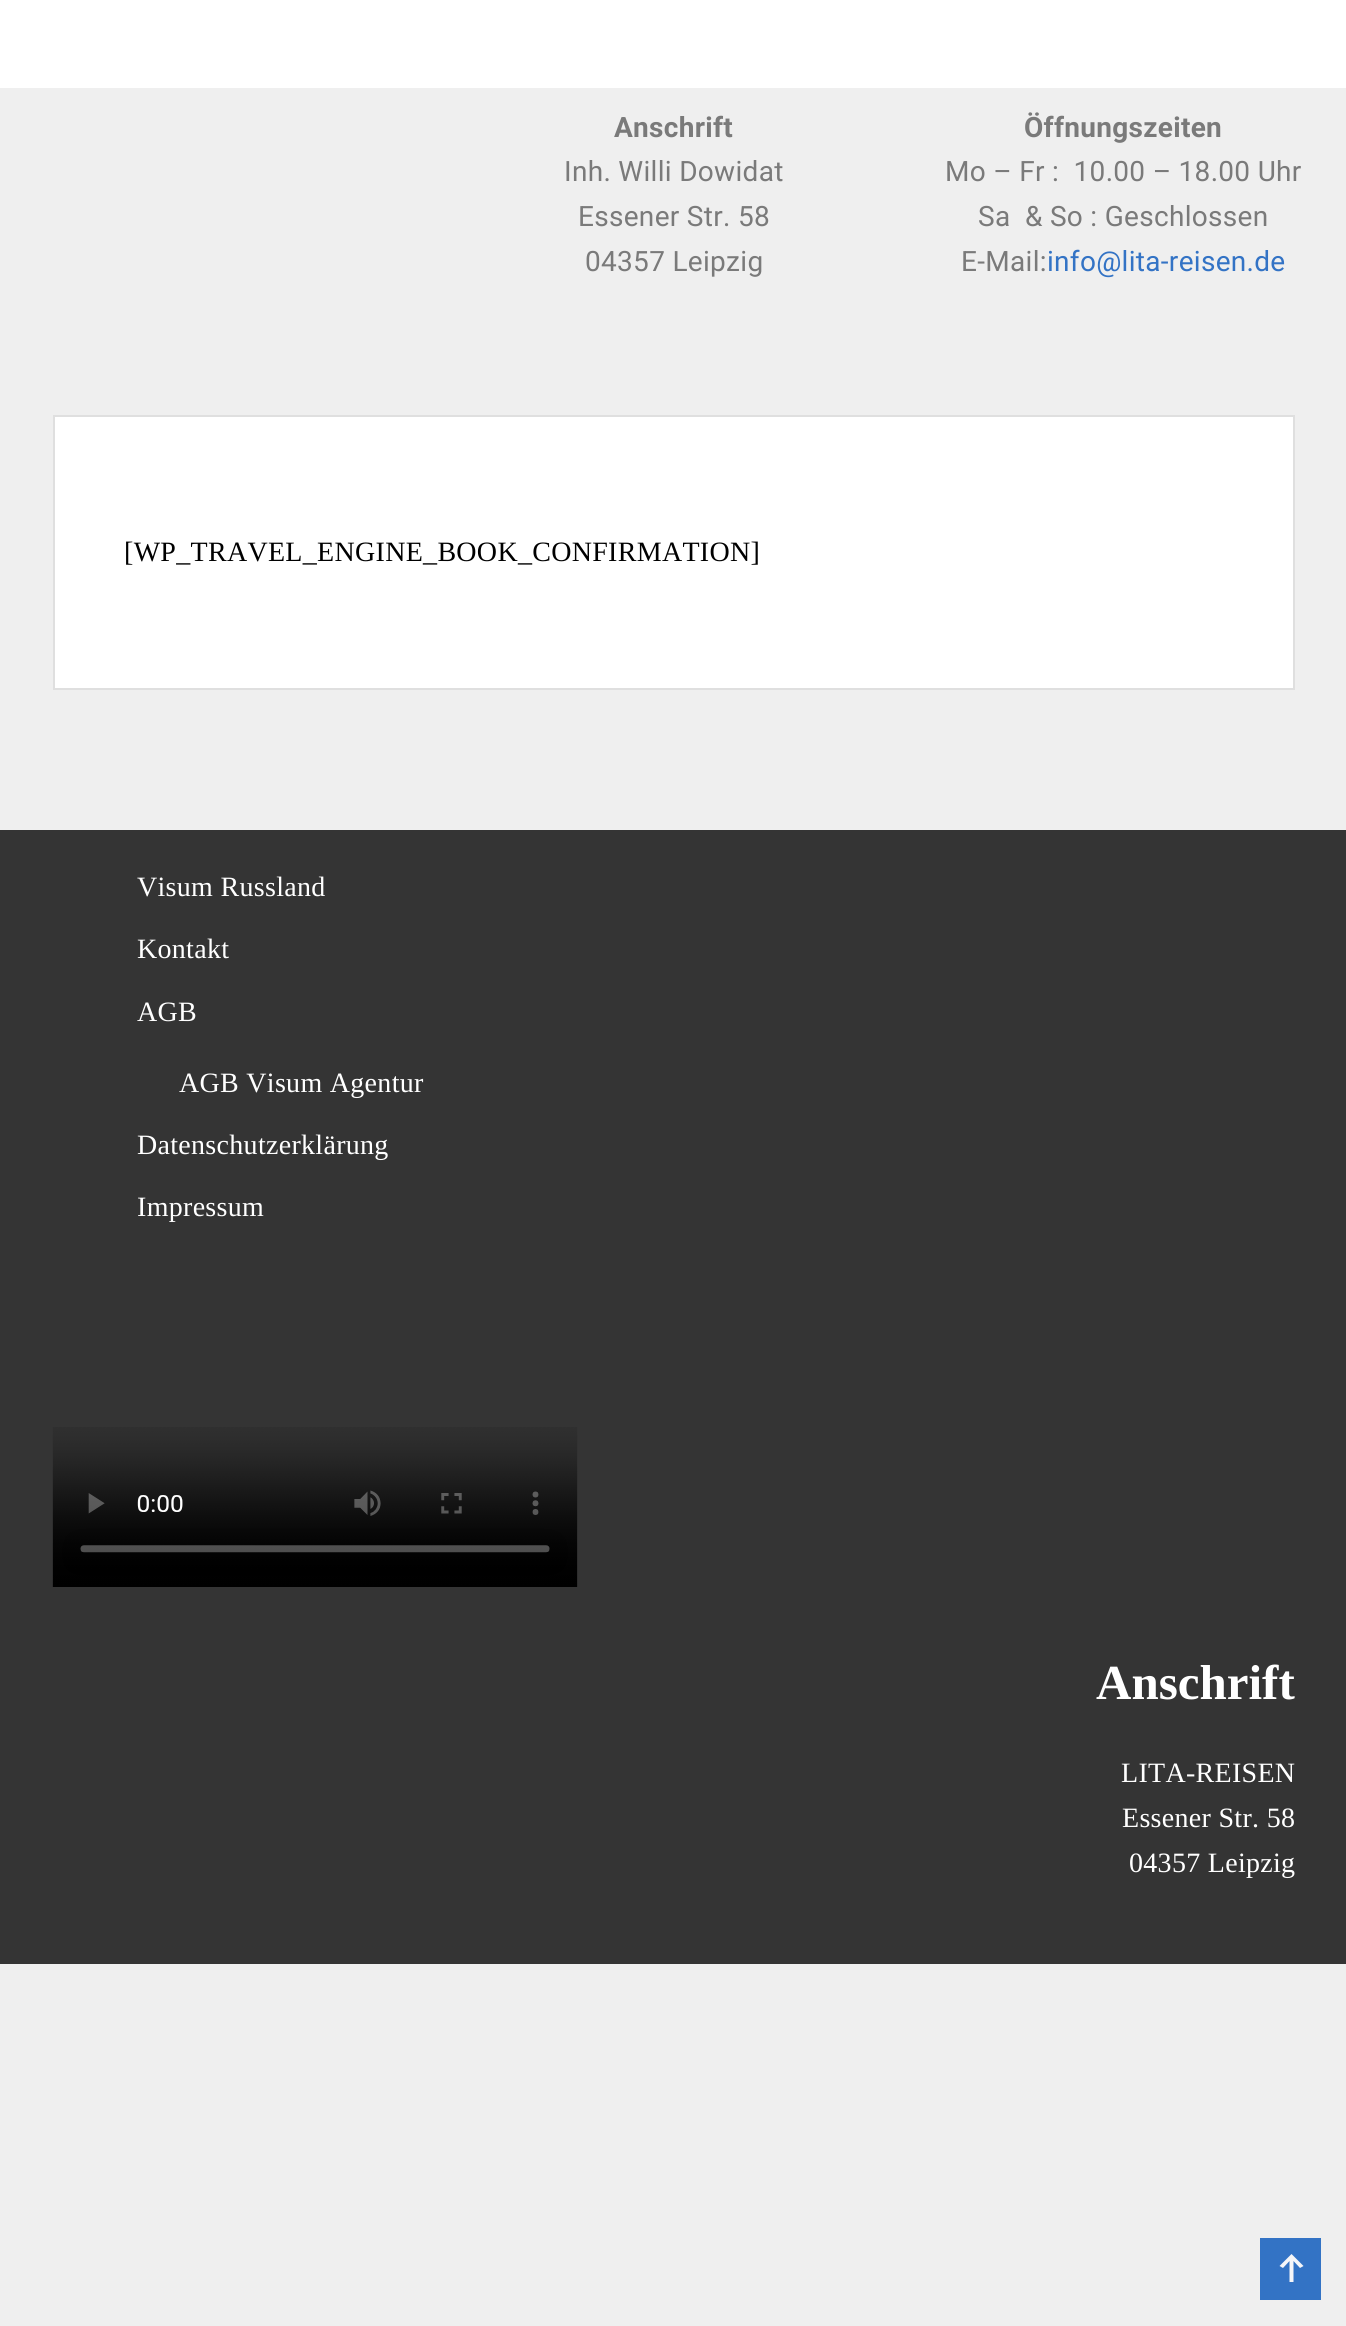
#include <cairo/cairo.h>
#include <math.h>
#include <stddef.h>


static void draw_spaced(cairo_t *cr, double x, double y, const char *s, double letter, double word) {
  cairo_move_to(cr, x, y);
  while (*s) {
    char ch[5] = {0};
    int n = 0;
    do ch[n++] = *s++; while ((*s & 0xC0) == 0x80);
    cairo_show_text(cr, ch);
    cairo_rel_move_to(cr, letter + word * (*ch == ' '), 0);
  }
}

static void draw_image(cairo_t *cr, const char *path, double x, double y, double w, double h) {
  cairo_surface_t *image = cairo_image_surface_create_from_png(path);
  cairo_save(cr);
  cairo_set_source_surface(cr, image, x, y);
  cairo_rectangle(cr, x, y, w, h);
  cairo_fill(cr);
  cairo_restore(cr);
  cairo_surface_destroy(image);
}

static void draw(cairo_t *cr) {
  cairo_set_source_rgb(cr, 239 / 255.0, 239 / 255.0, 239 / 255.0);
  cairo_paint(cr);
  cairo_set_source_rgb(cr, 1, 1, 1);
  cairo_rectangle(cr, 0, 0, 1346, 88);
  cairo_fill(cr);
  cairo_rectangle(cr, 54, 416, 1240, 273);
  cairo_fill_preserve(cr);
  cairo_set_source_rgb(cr, 223 / 255.0, 223 / 255.0, 223 / 255.0);
  cairo_stroke(cr);
  cairo_set_source_rgb(cr, 52 / 255.0, 52 / 255.0, 52 / 255.0);
  cairo_rectangle(cr, 0, 830, 1346, 1134);
  cairo_fill(cr);
  draw_image(cr, "images/1.png", 52, 1427, 526, 160);
  cairo_set_source_rgb(cr, 51 / 255.0, 115 / 255.0, 197 / 255.0);
  cairo_rectangle(cr, 1260, 2238, 61, 62);
  cairo_fill(cr);
  cairo_set_source_rgb(cr, 245 / 255.0, 246 / 255.0, 249 / 255.0);
  cairo_new_path(cr);
  cairo_move_to(cr, 1293.5, 2282);
  cairo_line_to(cr, 1289.5, 2282);
  cairo_line_to(cr, 1289.5, 2261);
  cairo_line_to(cr, 1283, 2268);
  cairo_line_to(cr, 1279.5, 2266);
  cairo_line_to(cr, 1291.5, 2254);
  cairo_line_to(cr, 1303.5, 2266);
  cairo_line_to(cr, 1300, 2268);
  cairo_line_to(cr, 1293.5, 2261);
  cairo_close_path(cr);
  cairo_fill(cr);
  cairo_select_font_face(cr, "Roboto", CAIRO_FONT_SLANT_NORMAL, CAIRO_FONT_WEIGHT_BOLD);
  cairo_set_font_size(cr, 28);
  cairo_set_source_rgb(cr, 122 / 255.0, 122 / 255.0, 122 / 255.0);
  draw_spaced(cr, 614, 137, "Anschrift", 0.3, 0);
  cairo_select_font_face(cr, "Roboto", CAIRO_FONT_SLANT_NORMAL, CAIRO_FONT_WEIGHT_NORMAL);
  draw_spaced(cr, 564, 181, "Inh. Willi Dowidat", 0.3, 0);
  draw_spaced(cr, 578, 226, "Essener Str. 58", 0.3, 0);
  draw_spaced(cr, 585, 271, "04357 Leipzig", 0.3, 0);
  cairo_select_font_face(cr, "Roboto", CAIRO_FONT_SLANT_NORMAL, CAIRO_FONT_WEIGHT_BOLD);
  draw_spaced(cr, 1024, 137, "Öffnungszeiten", 0.3, 0);
  cairo_select_font_face(cr, "Roboto", CAIRO_FONT_SLANT_NORMAL, CAIRO_FONT_WEIGHT_NORMAL);
  draw_spaced(cr, 945, 181, "Mo – Fr :  10.00 – 18.00 Uhr", 0.3, 0);
  draw_spaced(cr, 978, 226, "Sa  & So : Geschlossen", 0.3, 0);
  draw_spaced(cr, 961, 271, "E-Mail:", 0.3, 0);
  cairo_set_source_rgb(cr, 51 / 255.0, 115 / 255.0, 197 / 255.0);
  draw_spaced(cr, 1047, 271, "info@lita-reisen.de", 0.3, 0);
  cairo_select_font_face(cr, "Liberation Serif", CAIRO_FONT_SLANT_NORMAL, CAIRO_FONT_WEIGHT_NORMAL);
  cairo_set_source_rgb(cr, 0, 0, 0);
  draw_spaced(cr, 124, 561, "[WP_TRAVEL_ENGINE_BOOK_CONFIRMATION]", 0.3, 0);
  cairo_set_source_rgb(cr, 1, 1, 1);
  draw_spaced(cr, 137, 896, "Visum Russland", 0.3, 0);
  draw_spaced(cr, 137, 958, "Kontakt", 0.3, 0);
  draw_spaced(cr, 137, 1021, "AGB", 0.3, 0);
  draw_spaced(cr, 179, 1092, "AGB Visum Agentur", 0.3, 0);
  draw_spaced(cr, 137, 1154, "Datenschutzerklärung", 0.3, 0);
  draw_spaced(cr, 137, 1216, "Impressum", 0.3, 0);
  cairo_select_font_face(cr, "Liberation Serif", CAIRO_FONT_SLANT_NORMAL, CAIRO_FONT_WEIGHT_BOLD);
  cairo_set_font_size(cr, 49);
  cairo_move_to(cr, 1096, 1699);
  cairo_show_text(cr, "Anschrift");
  cairo_select_font_face(cr, "Liberation Serif", CAIRO_FONT_SLANT_NORMAL, CAIRO_FONT_WEIGHT_NORMAL);
  cairo_set_font_size(cr, 28);
  draw_spaced(cr, 1121, 1782, "LITA-REISEN", 0.3, 0);
  draw_spaced(cr, 1122, 1827, "Essener Str. 58", 0.3, 0);
  draw_spaced(cr, 1129, 1872, "04357 Leipzig", 0.3, 0);
}

int main(void) {
  cairo_surface_t *surface = cairo_image_surface_create(CAIRO_FORMAT_RGB24, 1346, 2326);
  cairo_t *cr = cairo_create(surface);
  cairo_font_options_t *options = cairo_font_options_create();
  cairo_font_options_set_hint_metrics(options, CAIRO_HINT_METRICS_OFF);
  cairo_font_options_set_hint_style(options, CAIRO_HINT_STYLE_NONE);
  cairo_set_font_options(cr, options);
  cairo_set_miter_limit(cr, 4);
  draw(cr);
  cairo_surface_write_to_png(surface, "out.png");
  cairo_font_options_destroy(options);
  cairo_destroy(cr);
  cairo_surface_destroy(surface);
  return 0;
}
